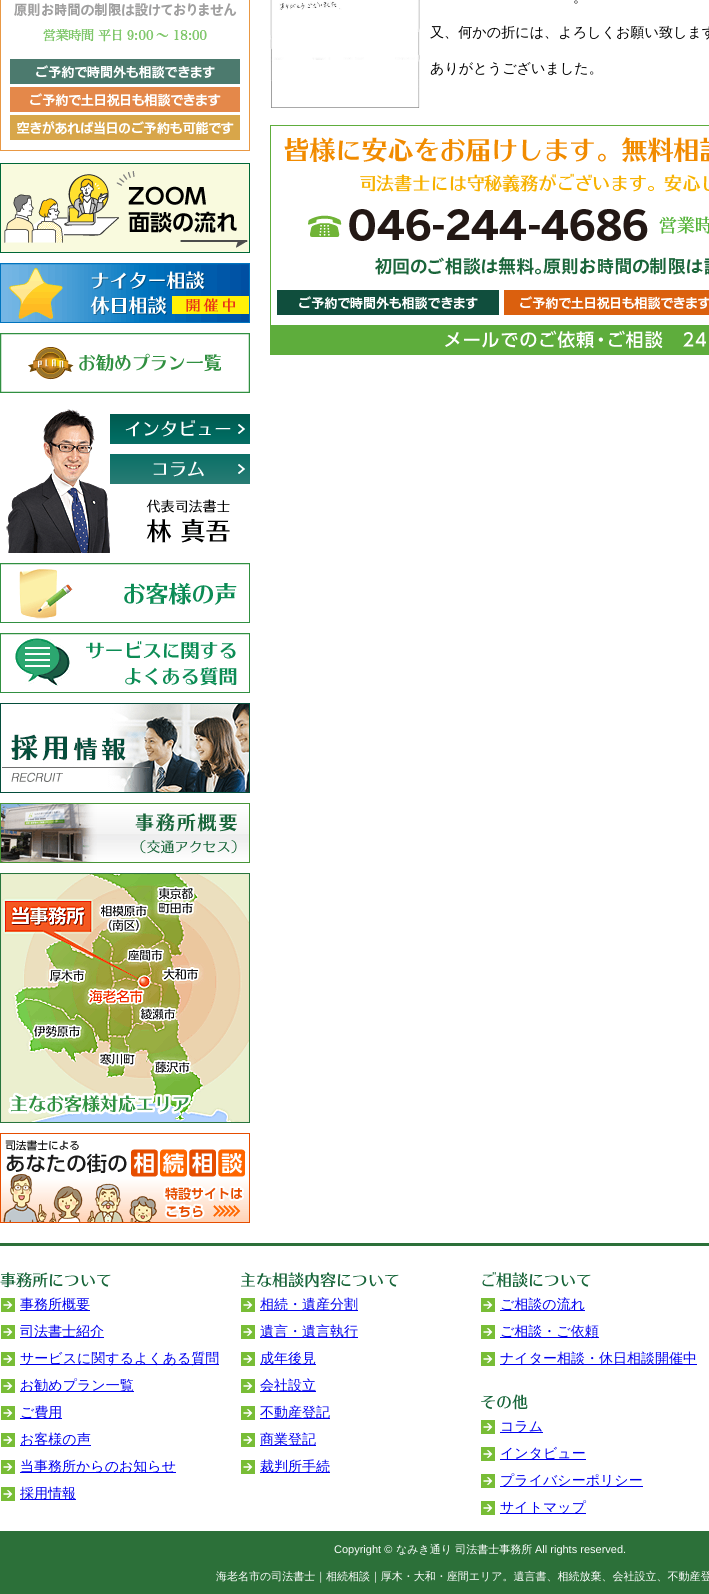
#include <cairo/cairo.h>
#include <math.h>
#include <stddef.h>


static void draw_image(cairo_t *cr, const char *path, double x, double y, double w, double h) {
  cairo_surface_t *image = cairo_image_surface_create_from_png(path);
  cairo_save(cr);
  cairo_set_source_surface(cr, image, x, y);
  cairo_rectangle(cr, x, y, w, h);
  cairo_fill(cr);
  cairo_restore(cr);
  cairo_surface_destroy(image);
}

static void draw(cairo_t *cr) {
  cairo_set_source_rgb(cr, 1, 1, 1);
  cairo_paint(cr);
  draw_image(cr, "images/1.png", 0, 0, 250, 151);
  draw_image(cr, "images/2.png", 0, 163, 250, 90);
  draw_image(cr, "images/3.png", 0, 263, 250, 60);
  draw_image(cr, "images/4.png", 0, 333, 250, 60);
  draw_image(cr, "images/5.png", 6, 409, 224, 144);
  draw_image(cr, "images/6.png", 110, 414, 140, 30);
  draw_image(cr, "images/7.png", 110, 454, 140, 30);
  draw_image(cr, "images/8.png", 0, 563, 250, 60);
  draw_image(cr, "images/9.png", 0, 633, 250, 60);
  draw_image(cr, "images/10.png", 0, 703, 250, 90);
  draw_image(cr, "images/11.png", 0, 803, 250, 60);
  draw_image(cr, "images/12.png", 0, 873, 250, 250);
  draw_image(cr, "images/13.png", 0, 1133, 250, 90);
  draw_image(cr, "images/14.png", 270, 0, 150, 108);
  draw_image(cr, "images/15.png", 277, 173, 432, 142);
  draw_image(cr, "images/16.png", 270, 125, 439, 230);
  cairo_set_source_rgb(cr, 44 / 255.0, 112 / 255.0, 57 / 255.0);
  cairo_rectangle(cr, 0, 1243, 709, 3);
  cairo_fill(cr);
  draw_image(cr, "images/17.png", 0, 1272, 111, 16);
  draw_image(cr, "images/18.png", 1, 1298, 14, 14);
  cairo_set_source_rgb(cr, 0, 0, 238 / 255.0);
  cairo_rectangle(cr, 20, 1310, 70, 1);
  cairo_fill(cr);
  draw_image(cr, "images/18.png", 1, 1325, 14, 14);
  cairo_rectangle(cr, 20, 1337, 84, 1);
  cairo_fill(cr);
  draw_image(cr, "images/18.png", 1, 1352, 14, 14);
  cairo_rectangle(cr, 20, 1364, 199, 1);
  cairo_fill(cr);
  draw_image(cr, "images/18.png", 1, 1379, 14, 14);
  cairo_rectangle(cr, 20, 1391, 114, 1);
  cairo_fill(cr);
  draw_image(cr, "images/18.png", 1, 1406, 14, 14);
  cairo_rectangle(cr, 20, 1418, 42, 1);
  cairo_fill(cr);
  draw_image(cr, "images/18.png", 1, 1433, 14, 14);
  cairo_rectangle(cr, 20, 1445, 71, 1);
  cairo_fill(cr);
  draw_image(cr, "images/18.png", 1, 1460, 14, 14);
  cairo_rectangle(cr, 20, 1472, 156, 1);
  cairo_fill(cr);
  draw_image(cr, "images/18.png", 1, 1487, 14, 14);
  cairo_rectangle(cr, 20, 1499, 56, 1);
  cairo_fill(cr);
  draw_image(cr, "images/19.png", 241, 1272, 158, 16);
  draw_image(cr, "images/18.png", 241, 1298, 14, 14);
  cairo_rectangle(cr, 260, 1310, 98, 1);
  cairo_fill(cr);
  draw_image(cr, "images/18.png", 241, 1325, 14, 14);
  cairo_rectangle(cr, 260, 1337, 98, 1);
  cairo_fill(cr);
  draw_image(cr, "images/18.png", 241, 1352, 14, 14);
  cairo_rectangle(cr, 260, 1364, 56, 1);
  cairo_fill(cr);
  draw_image(cr, "images/18.png", 241, 1379, 14, 14);
  cairo_rectangle(cr, 260, 1391, 56, 1);
  cairo_fill(cr);
  draw_image(cr, "images/18.png", 241, 1406, 14, 14);
  cairo_rectangle(cr, 260, 1418, 70, 1);
  cairo_fill(cr);
  draw_image(cr, "images/18.png", 241, 1433, 14, 14);
  cairo_rectangle(cr, 260, 1445, 56, 1);
  cairo_fill(cr);
  draw_image(cr, "images/18.png", 241, 1460, 14, 14);
  cairo_rectangle(cr, 260, 1472, 70, 1);
  cairo_fill(cr);
  draw_image(cr, "images/20.png", 482, 1272, 109, 16);
  draw_image(cr, "images/18.png", 481, 1298, 14, 14);
  cairo_rectangle(cr, 500, 1310, 85, 1);
  cairo_fill(cr);
  draw_image(cr, "images/18.png", 481, 1325, 14, 14);
  cairo_rectangle(cr, 500, 1337, 99, 1);
  cairo_fill(cr);
  draw_image(cr, "images/18.png", 481, 1352, 14, 14);
  cairo_rectangle(cr, 500, 1364, 197, 1);
  cairo_fill(cr);
  draw_image(cr, "images/21.png", 481, 1394, 47, 16);
  draw_image(cr, "images/18.png", 481, 1420, 14, 14);
  cairo_rectangle(cr, 500, 1432, 43, 1);
  cairo_fill(cr);
  draw_image(cr, "images/18.png", 481, 1447, 14, 14);
  cairo_rectangle(cr, 500, 1459, 86, 1);
  cairo_fill(cr);
  draw_image(cr, "images/18.png", 481, 1474, 14, 14);
  cairo_rectangle(cr, 500, 1486, 143, 1);
  cairo_fill(cr);
  draw_image(cr, "images/18.png", 481, 1501, 14, 14);
  cairo_rectangle(cr, 500, 1513, 86, 1);
  cairo_fill(cr);
  cairo_set_source_rgb(cr, 44 / 255.0, 112 / 255.0, 57 / 255.0);
  cairo_rectangle(cr, 0, 1531, 709, 63);
  cairo_fill(cr);
  cairo_select_font_face(cr, "WenQuanYi Zen Hei Medium", CAIRO_FONT_SLANT_NORMAL, CAIRO_FONT_WEIGHT_NORMAL);
  cairo_set_font_size(cr, 14.1);
  cairo_set_source_rgb(cr, 0, 0, 0);
  cairo_move_to(cr, 573, 2);
  cairo_show_text(cr, "。");
  cairo_move_to(cr, 430, 37);
  cairo_show_text(cr, "又、何かの折には、よろしくお願い致します");
  cairo_move_to(cr, 430, 73);
  cairo_show_text(cr, "ありがとうございました。");
  cairo_set_font_size(cr, 14);
  cairo_set_source_rgb(cr, 0, 0, 238 / 255.0);
  cairo_move_to(cr, 20, 1309);
  cairo_show_text(cr, "事務所概要");
  cairo_move_to(cr, 20, 1336);
  cairo_show_text(cr, "司法書士紹介");
  cairo_move_to(cr, 20, 1363);
  cairo_show_text(cr, "サービスに関するよくある質問");
  cairo_move_to(cr, 20, 1390);
  cairo_show_text(cr, "お勧めプラン一覧");
  cairo_move_to(cr, 20, 1417);
  cairo_show_text(cr, "ご費用");
  cairo_move_to(cr, 20, 1444);
  cairo_show_text(cr, "お客様の声");
  cairo_move_to(cr, 20, 1471);
  cairo_show_text(cr, "当事務所からのお知らせ");
  cairo_move_to(cr, 20, 1498);
  cairo_show_text(cr, "採用情報");
  cairo_move_to(cr, 260, 1309);
  cairo_show_text(cr, "相続・遺産分割");
  cairo_move_to(cr, 260, 1336);
  cairo_show_text(cr, "遺言・遺言執行");
  cairo_move_to(cr, 260, 1363);
  cairo_show_text(cr, "成年後見");
  cairo_move_to(cr, 260, 1390);
  cairo_show_text(cr, "会社設立");
  cairo_move_to(cr, 260, 1417);
  cairo_show_text(cr, "不動産登記");
  cairo_move_to(cr, 260, 1444);
  cairo_show_text(cr, "商業登記");
  cairo_move_to(cr, 260, 1471);
  cairo_show_text(cr, "裁判所手続");
  cairo_move_to(cr, 500, 1309);
  cairo_show_text(cr, "ご相談の流れ");
  cairo_move_to(cr, 500, 1336);
  cairo_show_text(cr, "ご相談・ご依頼");
  cairo_move_to(cr, 500, 1363);
  cairo_show_text(cr, "ナイター相談・休日相談開催中");
  cairo_move_to(cr, 500, 1431);
  cairo_show_text(cr, "コラム");
  cairo_move_to(cr, 500, 1458);
  cairo_show_text(cr, "インタビュー");
  cairo_move_to(cr, 500, 1485);
  cairo_show_text(cr, "プライバシーポリシー");
  cairo_move_to(cr, 500, 1512);
  cairo_show_text(cr, "サイトマップ");
  cairo_select_font_face(cr, "Liberation Sans", CAIRO_FONT_SLANT_NORMAL, CAIRO_FONT_WEIGHT_NORMAL);
  cairo_set_font_size(cr, 11);
  cairo_set_source_rgb(cr, 1, 1, 1);
  cairo_move_to(cr, 334, 1553);
  cairo_show_text(cr, "Copyright ©");
  cairo_select_font_face(cr, "WenQuanYi Zen Hei Medium", CAIRO_FONT_SLANT_NORMAL, CAIRO_FONT_WEIGHT_NORMAL);
  cairo_move_to(cr, 396, 1553);
  cairo_show_text(cr, "なみき通り 司法書士事務所");
  cairo_select_font_face(cr, "Liberation Sans", CAIRO_FONT_SLANT_NORMAL, CAIRO_FONT_WEIGHT_NORMAL);
  cairo_move_to(cr, 535, 1553);
  cairo_show_text(cr, "All rights reserved.");
  cairo_select_font_face(cr, "WenQuanYi Zen Hei Medium", CAIRO_FONT_SLANT_NORMAL, CAIRO_FONT_WEIGHT_NORMAL);
  cairo_move_to(cr, 216, 1580);
  cairo_show_text(cr, "海老名市の司法書士｜相続相談｜厚木・大和・座間エリア。遺言書、相続放棄、会社設立、不動産登");
}

int main(void) {
  cairo_surface_t *surface = cairo_image_surface_create(CAIRO_FORMAT_RGB24, 709, 1594);
  cairo_t *cr = cairo_create(surface);
  cairo_font_options_t *options = cairo_font_options_create();
  cairo_font_options_set_hint_metrics(options, CAIRO_HINT_METRICS_OFF);
  cairo_font_options_set_hint_style(options, CAIRO_HINT_STYLE_NONE);
  cairo_set_font_options(cr, options);
  cairo_set_miter_limit(cr, 4);
  draw(cr);
  cairo_surface_write_to_png(surface, "out.png");
  cairo_font_options_destroy(options);
  cairo_destroy(cr);
  cairo_surface_destroy(surface);
  return 0;
}
